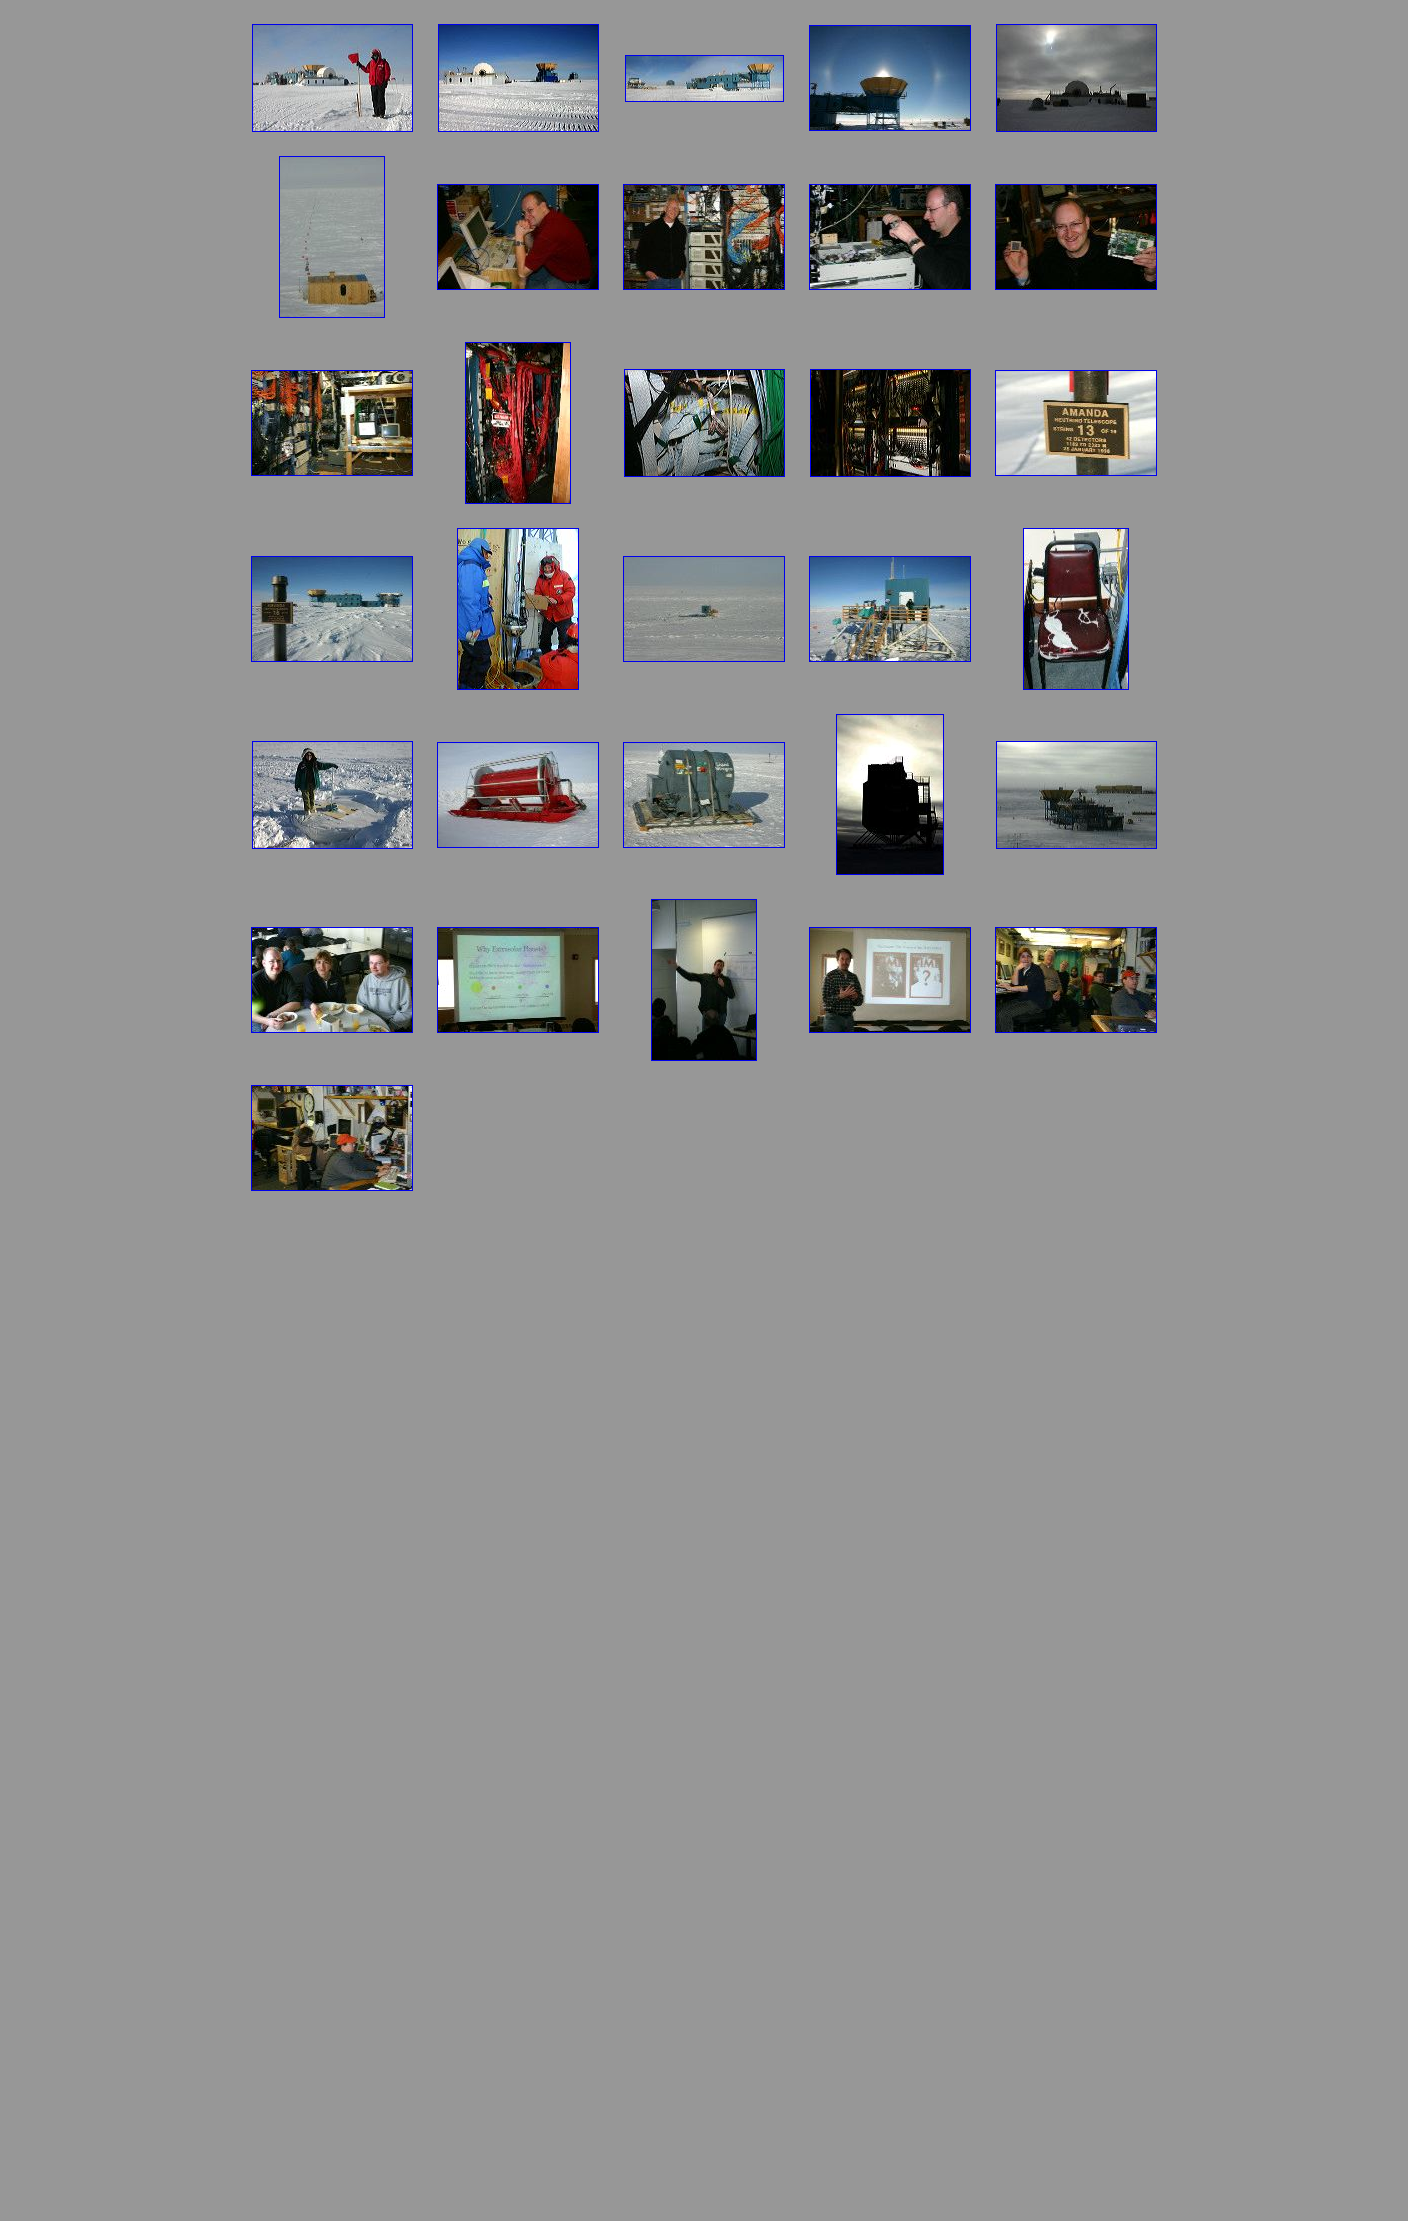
#include <cairo/cairo.h>
#include <math.h>
#include <stddef.h>


static void draw_image(cairo_t *cr, const char *path, double x, double y, double w, double h) {
  cairo_surface_t *image = cairo_image_surface_create_from_png(path);
  cairo_save(cr);
  cairo_set_source_surface(cr, image, x, y);
  cairo_rectangle(cr, x, y, w, h);
  cairo_fill(cr);
  cairo_restore(cr);
  cairo_surface_destroy(image);
}

static void draw(cairo_t *cr) {
  cairo_set_source_rgb(cr, 151 / 255.0, 151 / 255.0, 151 / 255.0);
  cairo_paint(cr);
  cairo_rectangle(cr, 252.5, 24.5, 160, 107);
  cairo_set_source_rgb(cr, 0, 0, 238 / 255.0);
  cairo_set_line_width(cr, 1);
  cairo_stroke(cr);
  draw_image(cr, "images/1.png", 253, 25, 159, 106);
  cairo_rectangle(cr, 438.5, 24.5, 160, 107);
  cairo_stroke(cr);
  draw_image(cr, "images/2.png", 439, 25, 159, 106);
  cairo_rectangle(cr, 625.5, 55.5, 158, 46);
  cairo_stroke(cr);
  draw_image(cr, "images/3.png", 626, 56, 157, 45);
  cairo_rectangle(cr, 809.5, 25.5, 161, 105);
  cairo_stroke(cr);
  draw_image(cr, "images/4.png", 810, 26, 160, 104);
  cairo_rectangle(cr, 996.5, 24.5, 160, 107);
  cairo_stroke(cr);
  draw_image(cr, "images/5.png", 997, 25, 159, 106);
  cairo_rectangle(cr, 279.5, 156.5, 105, 161);
  cairo_stroke(cr);
  draw_image(cr, "images/6.png", 280, 157, 104, 160);
  cairo_rectangle(cr, 437.5, 184.5, 161, 105);
  cairo_stroke(cr);
  draw_image(cr, "images/7.png", 438, 185, 160, 104);
  cairo_rectangle(cr, 623.5, 184.5, 161, 105);
  cairo_stroke(cr);
  draw_image(cr, "images/8.png", 624, 185, 160, 104);
  cairo_rectangle(cr, 809.5, 184.5, 161, 105);
  cairo_stroke(cr);
  draw_image(cr, "images/9.png", 810, 185, 160, 104);
  cairo_rectangle(cr, 995.5, 184.5, 161, 105);
  cairo_stroke(cr);
  draw_image(cr, "images/10.png", 996, 185, 160, 104);
  cairo_rectangle(cr, 251.5, 370.5, 161, 105);
  cairo_stroke(cr);
  draw_image(cr, "images/11.png", 252, 371, 160, 104);
  cairo_rectangle(cr, 465.5, 342.5, 105, 161);
  cairo_stroke(cr);
  draw_image(cr, "images/12.png", 466, 343, 104, 160);
  cairo_rectangle(cr, 624.5, 369.5, 160, 107);
  cairo_stroke(cr);
  draw_image(cr, "images/13.png", 625, 370, 159, 106);
  cairo_rectangle(cr, 810.5, 369.5, 160, 107);
  cairo_stroke(cr);
  draw_image(cr, "images/14.png", 811, 370, 159, 106);
  cairo_rectangle(cr, 995.5, 370.5, 161, 105);
  cairo_stroke(cr);
  draw_image(cr, "images/15.png", 996, 371, 160, 104);
  cairo_rectangle(cr, 251.5, 556.5, 161, 105);
  cairo_stroke(cr);
  draw_image(cr, "images/16.png", 252, 557, 160, 104);
  cairo_rectangle(cr, 457.5, 528.5, 121, 161);
  cairo_stroke(cr);
  draw_image(cr, "images/17.png", 458, 529, 120, 160);
  cairo_rectangle(cr, 623.5, 556.5, 161, 105);
  cairo_stroke(cr);
  draw_image(cr, "images/18.png", 624, 557, 160, 104);
  cairo_rectangle(cr, 809.5, 556.5, 161, 105);
  cairo_stroke(cr);
  draw_image(cr, "images/19.png", 810, 557, 160, 104);
  cairo_rectangle(cr, 1023.5, 528.5, 105, 161);
  cairo_stroke(cr);
  draw_image(cr, "images/20.png", 1024, 529, 104, 160);
  cairo_rectangle(cr, 252.5, 741.5, 160, 107);
  cairo_stroke(cr);
  draw_image(cr, "images/21.png", 253, 742, 159, 106);
  cairo_rectangle(cr, 437.5, 742.5, 161, 105);
  cairo_stroke(cr);
  draw_image(cr, "images/22.png", 438, 743, 160, 104);
  cairo_rectangle(cr, 623.5, 742.5, 161, 105);
  cairo_stroke(cr);
  draw_image(cr, "images/23.png", 624, 743, 160, 104);
  cairo_rectangle(cr, 836.5, 714.5, 107, 160);
  cairo_stroke(cr);
  draw_image(cr, "images/24.png", 837, 715, 106, 159);
  cairo_rectangle(cr, 996.5, 741.5, 160, 107);
  cairo_stroke(cr);
  draw_image(cr, "images/25.png", 997, 742, 159, 106);
  cairo_rectangle(cr, 251.5, 927.5, 161, 105);
  cairo_stroke(cr);
  draw_image(cr, "images/26.png", 252, 928, 160, 104);
  cairo_rectangle(cr, 437.5, 927.5, 161, 105);
  cairo_stroke(cr);
  draw_image(cr, "images/27.png", 438, 928, 160, 104);
  cairo_rectangle(cr, 651.5, 899.5, 105, 161);
  cairo_stroke(cr);
  draw_image(cr, "images/28.png", 652, 900, 104, 160);
  cairo_rectangle(cr, 809.5, 927.5, 161, 105);
  cairo_stroke(cr);
  draw_image(cr, "images/29.png", 810, 928, 160, 104);
  cairo_rectangle(cr, 995.5, 927.5, 161, 105);
  cairo_stroke(cr);
  draw_image(cr, "images/30.png", 996, 928, 160, 104);
  cairo_rectangle(cr, 251.5, 1085.5, 161, 105);
  cairo_stroke(cr);
  draw_image(cr, "images/31.png", 252, 1086, 160, 104);
}

int main(void) {
  cairo_surface_t *surface = cairo_image_surface_create(CAIRO_FORMAT_RGB24, 1408, 2221);
  cairo_t *cr = cairo_create(surface);
  cairo_font_options_t *options = cairo_font_options_create();
  cairo_font_options_set_hint_metrics(options, CAIRO_HINT_METRICS_OFF);
  cairo_font_options_set_hint_style(options, CAIRO_HINT_STYLE_NONE);
  cairo_set_font_options(cr, options);
  cairo_set_miter_limit(cr, 4);
  draw(cr);
  cairo_surface_write_to_png(surface, "out.png");
  cairo_font_options_destroy(options);
  cairo_destroy(cr);
  cairo_surface_destroy(surface);
  return 0;
}
